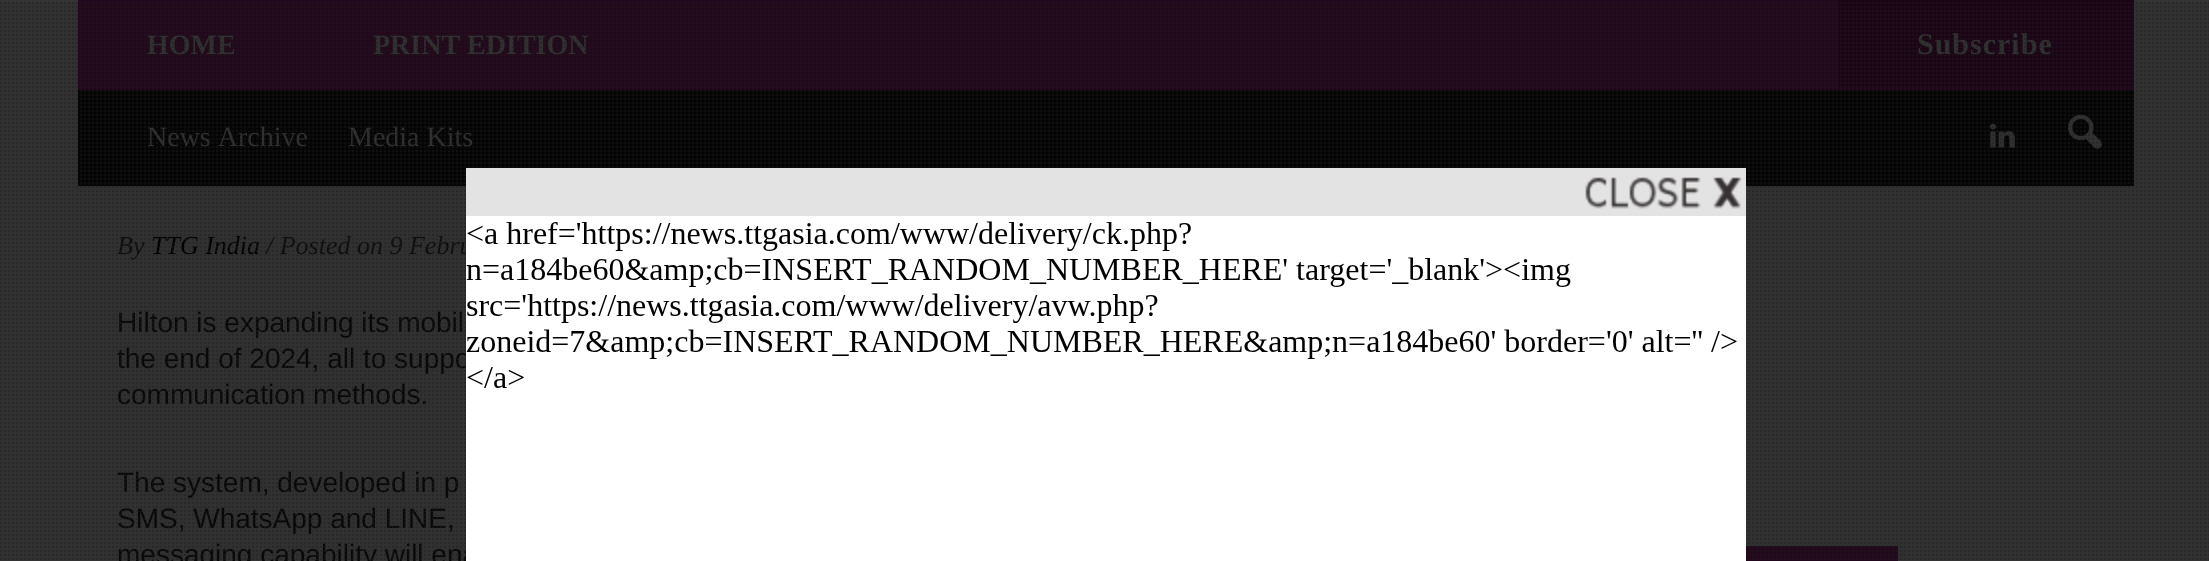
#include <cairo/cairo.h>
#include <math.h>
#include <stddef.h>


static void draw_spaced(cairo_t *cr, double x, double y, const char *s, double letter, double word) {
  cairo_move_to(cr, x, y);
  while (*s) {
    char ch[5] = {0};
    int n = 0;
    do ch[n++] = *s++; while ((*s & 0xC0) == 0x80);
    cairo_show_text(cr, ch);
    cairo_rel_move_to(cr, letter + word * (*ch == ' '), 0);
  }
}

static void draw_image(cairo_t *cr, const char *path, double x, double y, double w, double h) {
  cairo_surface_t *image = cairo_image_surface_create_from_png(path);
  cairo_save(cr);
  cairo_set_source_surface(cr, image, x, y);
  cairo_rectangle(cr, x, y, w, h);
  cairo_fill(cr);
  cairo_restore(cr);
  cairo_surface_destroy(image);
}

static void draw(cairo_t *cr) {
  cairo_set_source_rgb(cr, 51 / 255.0, 51 / 255.0, 51 / 255.0);
  cairo_paint(cr);
  cairo_set_source_rgb(cr, 4 / 255.0, 4 / 255.0, 4 / 255.0);
  cairo_rectangle(cr, 78, 90, 2056, 96);
  cairo_fill(cr);
  cairo_set_source_rgb(cr, 34 / 255.0, 8 / 255.0, 28 / 255.0);
  cairo_rectangle(cr, 78, 0, 2056, 90);
  cairo_fill(cr);
  cairo_set_source_rgb(cr, 27 / 255.0, 4 / 255.0, 22 / 255.0);
  cairo_rectangle(cr, 1838, 0, 296, 88);
  cairo_fill(cr);
  draw_image(cr, "images/2.png", 1990, 123, 25, 25);
  draw_image(cr, "images/3.png", 2068, 114, 34, 35);
  cairo_set_source_rgb(cr, 34 / 255.0, 8 / 255.0, 28 / 255.0);
  cairo_rectangle(cr, 1746, 546, 152, 15);
  cairo_fill(cr);
  cairo_select_font_face(cr, "Liberation Serif", CAIRO_FONT_SLANT_NORMAL, CAIRO_FONT_WEIGHT_BOLD);
  cairo_set_font_size(cr, 28);
  cairo_set_source_rgb(cr, 51 / 255.0, 51 / 255.0, 51 / 255.0);
  cairo_move_to(cr, 147, 54);
  cairo_show_text(cr, "HOME");
  cairo_move_to(cr, 373, 54);
  cairo_show_text(cr, "PRINT EDITION");
  cairo_set_font_size(cr, 30);
  draw_spaced(cr, 1917, 54, "Subscribe", 1, 0);
  cairo_select_font_face(cr, "Liberation Serif", CAIRO_FONT_SLANT_NORMAL, CAIRO_FONT_WEIGHT_NORMAL);
  cairo_set_font_size(cr, 28);
  cairo_move_to(cr, 147, 146);
  cairo_show_text(cr, "News Archive");
  cairo_move_to(cr, 348, 146);
  cairo_show_text(cr, "Media Kits");
  cairo_select_font_face(cr, "Liberation Serif", CAIRO_FONT_SLANT_ITALIC, CAIRO_FONT_WEIGHT_NORMAL);
  cairo_set_font_size(cr, 26);
  cairo_set_source_rgb(cr, 14 / 255.0, 14 / 255.0, 14 / 255.0);
  cairo_move_to(cr, 117, 254);
  cairo_show_text(cr, "By");
  cairo_set_source_rgb(cr, 0, 0, 0);
  cairo_move_to(cr, 151, 254);
  cairo_show_text(cr, "TTG India");
  cairo_set_source_rgb(cr, 14 / 255.0, 14 / 255.0, 14 / 255.0);
  cairo_move_to(cr, 266, 254);
  cairo_show_text(cr, "/ Posted on 9 Febru");
  cairo_select_font_face(cr, "Liberation Sans", CAIRO_FONT_SLANT_NORMAL, CAIRO_FONT_WEIGHT_NORMAL);
  cairo_set_font_size(cr, 28);
  cairo_set_source_rgb(cr, 7 / 255.0, 7 / 255.0, 7 / 255.0);
  cairo_move_to(cr, 117, 332);
  cairo_show_text(cr, "Hilton is expanding its mobil");
  cairo_move_to(cr, 117, 368);
  cairo_show_text(cr, "the end of 2024, all to suppo");
  cairo_move_to(cr, 117, 404);
  cairo_show_text(cr, "communication methods.");
  cairo_move_to(cr, 117, 492);
  cairo_show_text(cr, "The system, developed in p");
  cairo_move_to(cr, 117, 528);
  cairo_show_text(cr, "SMS, WhatsApp and LINE,");
  cairo_move_to(cr, 117, 564);
  cairo_show_text(cr, "messaging capability will ena");
  draw_image(cr, "images/1.png", 0, 2, 2209, 558);
  cairo_set_source_rgb(cr, 227 / 255.0, 227 / 255.0, 227 / 255.0);
  cairo_rectangle(cr, 466, 168, 1280, 48);
  cairo_fill(cr);
  draw_image(cr, "images/4.png", 1585, 177, 157, 32);
  cairo_set_source_rgb(cr, 1, 1, 1);
  cairo_rectangle(cr, 466, 216, 1280, 345);
  cairo_fill(cr);
  draw_image(cr, "images/5.png", 466, 221, 1271, 167);
}

int main(void) {
  cairo_surface_t *surface = cairo_image_surface_create(CAIRO_FORMAT_RGB24, 2209, 561);
  cairo_t *cr = cairo_create(surface);
  cairo_font_options_t *options = cairo_font_options_create();
  cairo_font_options_set_hint_metrics(options, CAIRO_HINT_METRICS_OFF);
  cairo_font_options_set_hint_style(options, CAIRO_HINT_STYLE_NONE);
  cairo_set_font_options(cr, options);
  cairo_set_miter_limit(cr, 4);
  draw(cr);
  cairo_surface_write_to_png(surface, "out.png");
  cairo_font_options_destroy(options);
  cairo_destroy(cr);
  cairo_surface_destroy(surface);
  return 0;
}
